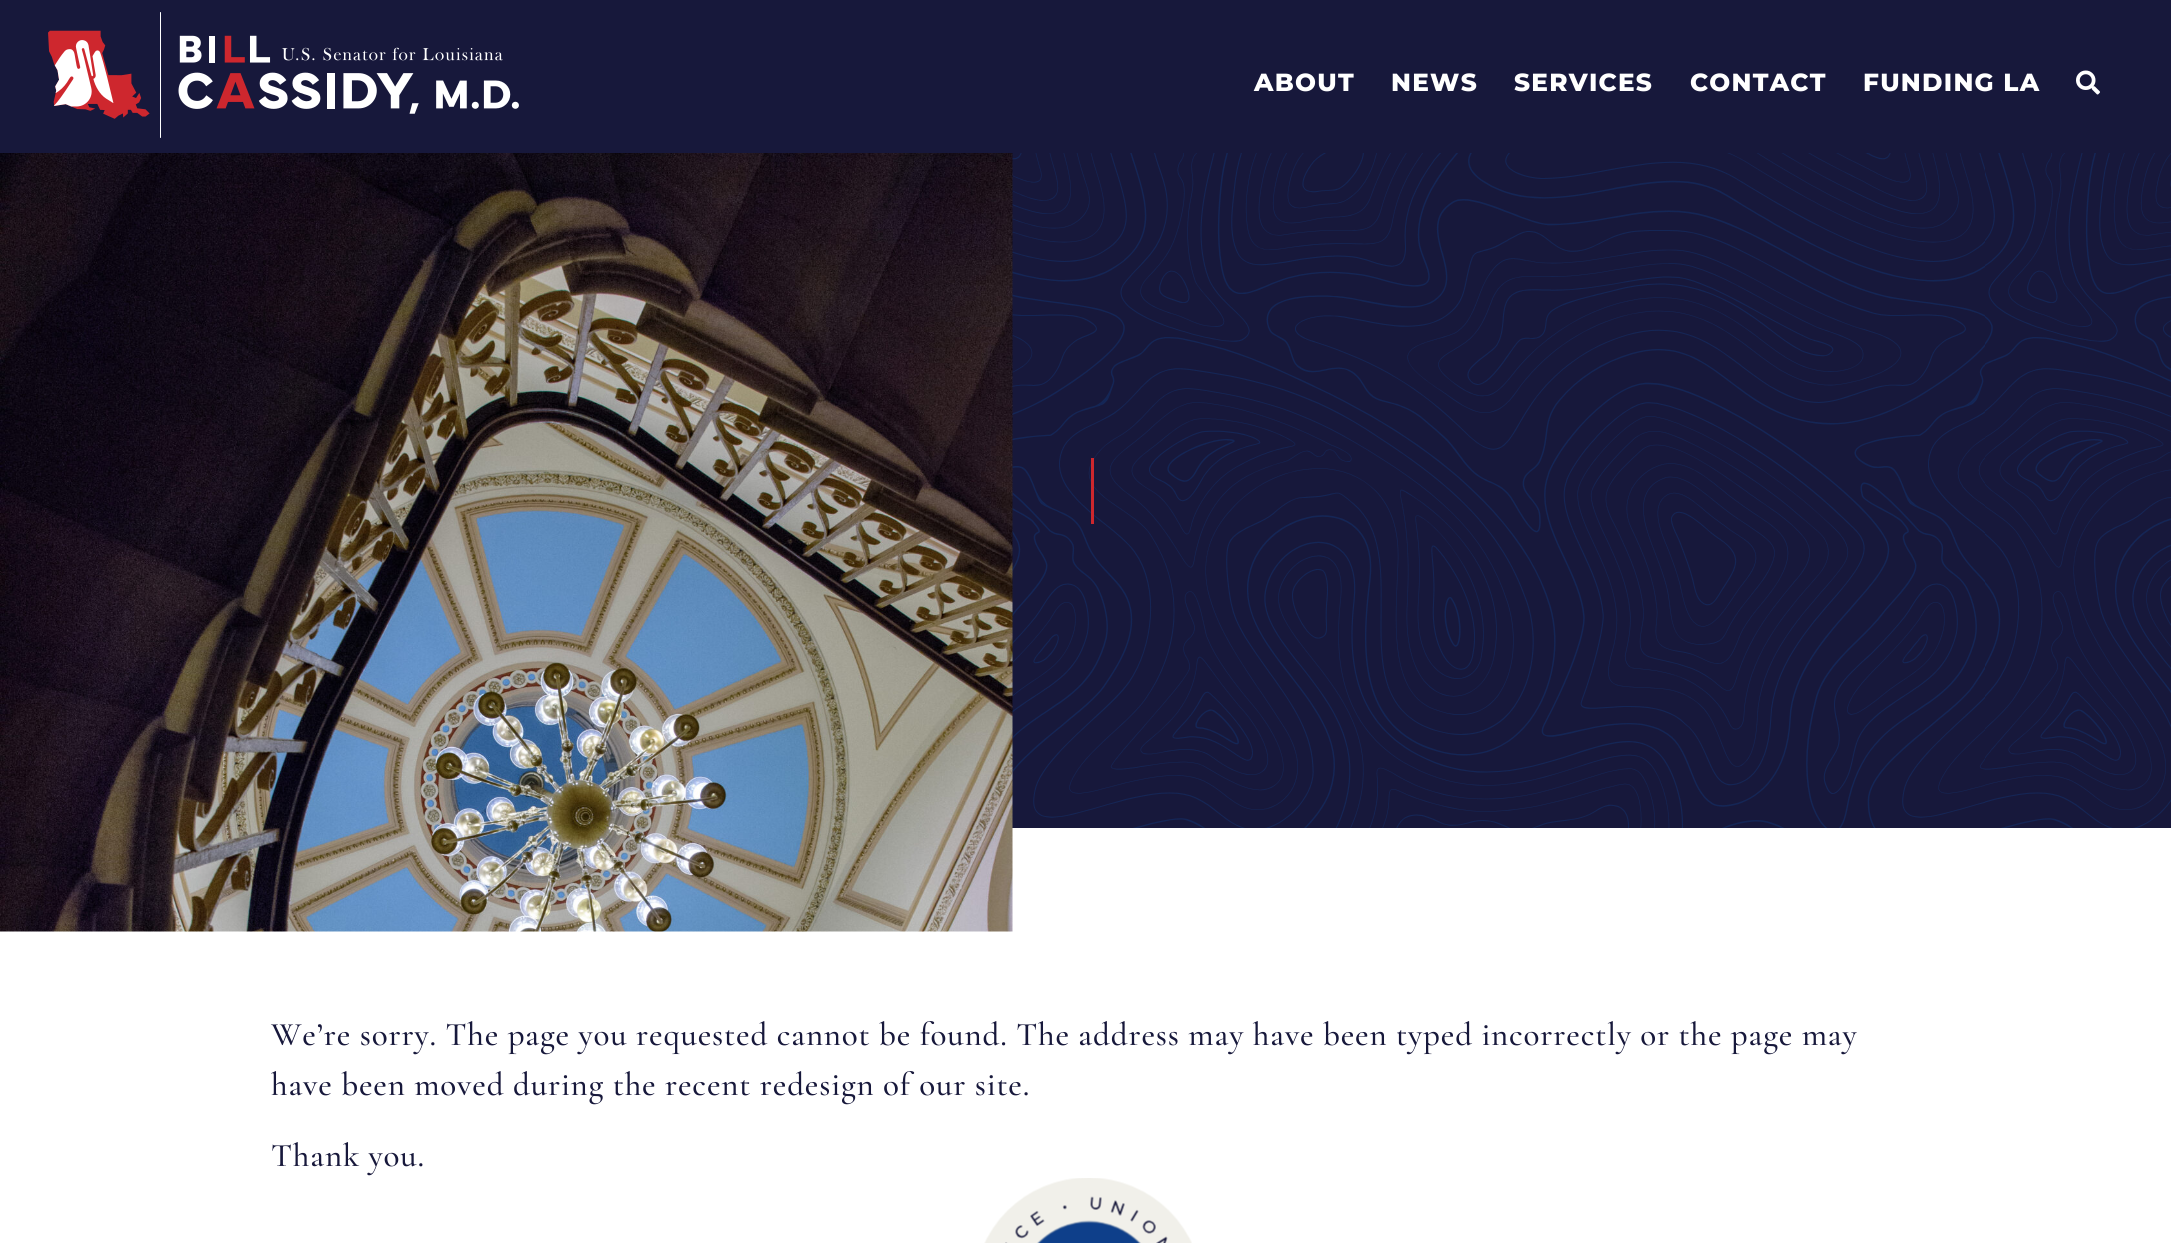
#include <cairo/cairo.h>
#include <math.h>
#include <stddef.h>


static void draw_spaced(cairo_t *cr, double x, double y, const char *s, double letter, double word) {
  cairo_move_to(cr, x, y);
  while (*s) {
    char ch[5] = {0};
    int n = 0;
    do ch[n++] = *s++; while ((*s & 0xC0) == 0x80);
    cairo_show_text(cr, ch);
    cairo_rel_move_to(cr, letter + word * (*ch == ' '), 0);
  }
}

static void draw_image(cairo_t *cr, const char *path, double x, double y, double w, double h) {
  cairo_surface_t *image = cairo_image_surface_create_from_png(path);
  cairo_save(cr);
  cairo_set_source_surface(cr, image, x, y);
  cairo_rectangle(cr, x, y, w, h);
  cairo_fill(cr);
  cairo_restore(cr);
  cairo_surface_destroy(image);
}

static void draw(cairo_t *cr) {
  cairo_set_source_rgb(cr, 1, 1, 1);
  cairo_paint(cr);
  cairo_set_source_rgb(cr, 23 / 255.0, 24 / 255.0, 59 / 255.0);
  cairo_rectangle(cr, 0, 0, 2171, 153);
  cairo_fill(cr);
  draw_image(cr, "images/1.png", 48, 12, 471, 126);
  draw_image(cr, "images/2.png", 2076, 70, 24, 25);
  draw_image(cr, "images/3.png", 1012, 153, 1159, 675);
  draw_image(cr, "images/4.png", 0, 153, 1013, 779);
  cairo_set_source_rgb(cr, 205 / 255.0, 39 / 255.0, 45 / 255.0);
  cairo_rectangle(cr, 1091, 458, 3, 66);
  cairo_fill(cr);
  draw_image(cr, "images/5.png", 984, 1178, 208, 65);
  cairo_select_font_face(cr, "Montserrat ExtraBold", CAIRO_FONT_SLANT_NORMAL, CAIRO_FONT_WEIGHT_NORMAL);
  cairo_set_font_size(cr, 24.75);
  cairo_set_source_rgb(cr, 1, 1, 1);
  draw_spaced(cr, 1254, 91, "ABOUT", 1.25, 0);
  draw_spaced(cr, 1391, 91, "NEWS", 1.25, 0);
  draw_spaced(cr, 1514, 91, "SERVICES", 1.25, 0);
  draw_spaced(cr, 1690, 91, "CONTACT", 1.25, 0);
  draw_spaced(cr, 1863, 91, "FUNDING LA", 1.25, 0);
  cairo_select_font_face(cr, "Cormorant Garamond Medium", CAIRO_FONT_SLANT_NORMAL, CAIRO_FONT_WEIGHT_NORMAL);
  cairo_set_font_size(cr, 33);
  cairo_set_source_rgb(cr, 23 / 255.0, 24 / 255.0, 59 / 255.0);
  draw_spaced(cr, 271, 1045, "We’re sorry. The page you requested cannot be found. The address may have been typed incorrectly or the page may", 0.82, 0);
  draw_spaced(cr, 271, 1095, "have been moved during the recent redesign of our site.", 0.82, 0);
  draw_spaced(cr, 271, 1166, "Thank you.", 0.82, 0);
}

int main(void) {
  cairo_surface_t *surface = cairo_image_surface_create(CAIRO_FORMAT_RGB24, 2171, 1243);
  cairo_t *cr = cairo_create(surface);
  cairo_font_options_t *options = cairo_font_options_create();
  cairo_font_options_set_hint_metrics(options, CAIRO_HINT_METRICS_OFF);
  cairo_font_options_set_hint_style(options, CAIRO_HINT_STYLE_NONE);
  cairo_set_font_options(cr, options);
  cairo_set_miter_limit(cr, 4);
  draw(cr);
  cairo_surface_write_to_png(surface, "out.png");
  cairo_font_options_destroy(options);
  cairo_destroy(cr);
  cairo_surface_destroy(surface);
  return 0;
}
